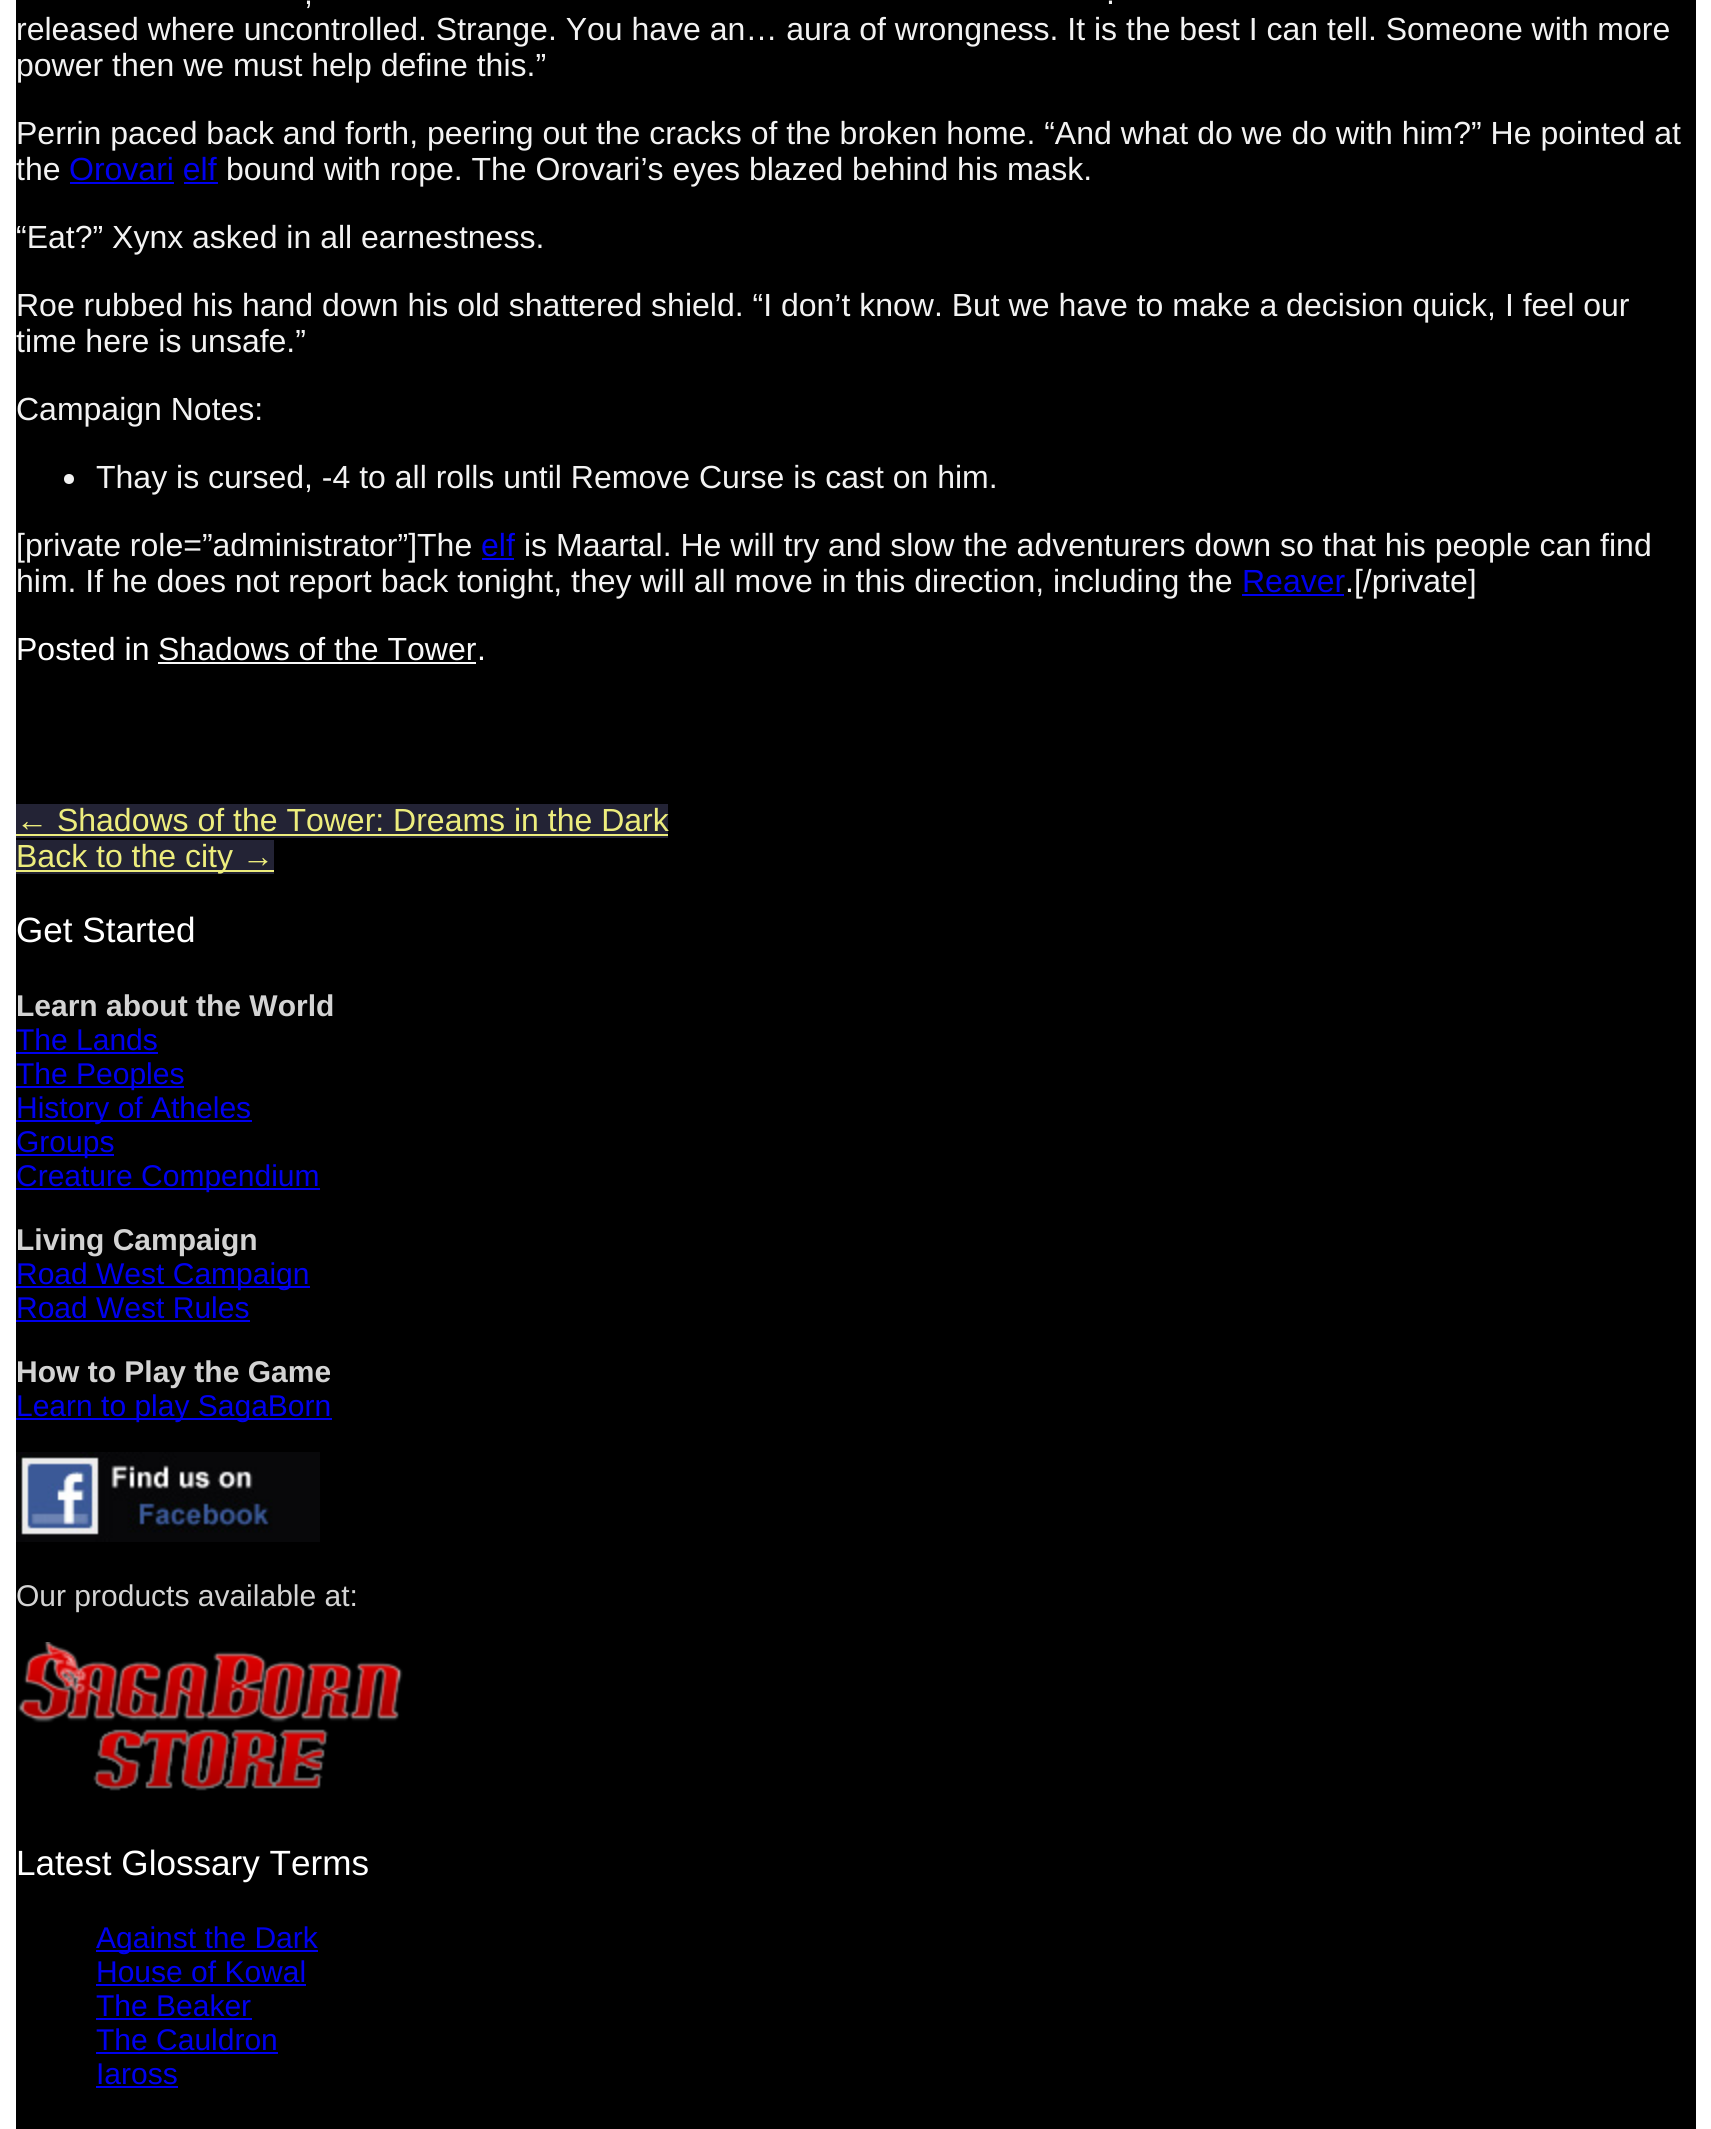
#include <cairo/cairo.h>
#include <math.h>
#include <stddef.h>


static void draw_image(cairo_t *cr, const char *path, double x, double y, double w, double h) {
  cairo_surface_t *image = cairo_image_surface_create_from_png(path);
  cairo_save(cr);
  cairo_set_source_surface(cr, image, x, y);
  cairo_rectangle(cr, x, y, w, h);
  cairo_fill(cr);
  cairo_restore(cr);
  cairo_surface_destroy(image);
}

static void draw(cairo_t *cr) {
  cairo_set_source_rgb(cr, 1, 1, 1);
  cairo_paint(cr);
  cairo_set_source_rgb(cr, 0, 0, 0);
  cairo_rectangle(cr, 16, 0, 1680, 2129);
  cairo_fill(cr);
  cairo_set_source_rgb(cr, 0, 0, 238 / 255.0);
  cairo_rectangle(cr, 70, 182, 104, 2);
  cairo_fill(cr);
  cairo_rectangle(cr, 184, 182, 34, 2);
  cairo_fill(cr);
  cairo_set_source_rgb(cr, 242 / 255.0, 242 / 255.0, 242 / 255.0);
  cairo_arc(cr, 69, 479, 5, 0, 2 * M_PI);
  cairo_fill(cr);
  cairo_set_source_rgb(cr, 0, 0, 238 / 255.0);
  cairo_rectangle(cr, 482, 558, 32, 2);
  cairo_fill(cr);
  cairo_rectangle(cr, 1242, 594, 102, 2);
  cairo_fill(cr);
  cairo_set_source_rgb(cr, 249 / 255.0, 249 / 255.0, 249 / 255.0);
  cairo_rectangle(cr, 158, 662, 318, 2);
  cairo_fill(cr);
  cairo_set_source_rgb(cr, 35 / 255.0, 35 / 255.0, 53 / 255.0);
  cairo_rectangle(cr, 16, 804, 652, 34);
  cairo_fill(cr);
  cairo_set_source_rgb(cr, 237 / 255.0, 237 / 255.0, 125 / 255.0);
  cairo_rectangle(cr, 16, 834, 652, 2);
  cairo_fill(cr);
  cairo_set_source_rgb(cr, 35 / 255.0, 35 / 255.0, 53 / 255.0);
  cairo_rectangle(cr, 16, 840, 258, 34);
  cairo_fill(cr);
  cairo_set_source_rgb(cr, 237 / 255.0, 237 / 255.0, 125 / 255.0);
  cairo_rectangle(cr, 16, 870, 258, 2);
  cairo_fill(cr);
  cairo_set_source_rgb(cr, 0, 0, 238 / 255.0);
  cairo_rectangle(cr, 16, 1052, 142, 2);
  cairo_fill(cr);
  cairo_rectangle(cr, 16, 1086, 168, 2);
  cairo_fill(cr);
  cairo_rectangle(cr, 16, 1120, 236, 2);
  cairo_fill(cr);
  cairo_rectangle(cr, 16, 1154, 98, 2);
  cairo_fill(cr);
  cairo_rectangle(cr, 16, 1188, 304, 2);
  cairo_fill(cr);
  cairo_rectangle(cr, 16, 1286, 294, 2);
  cairo_fill(cr);
  cairo_rectangle(cr, 16, 1320, 234, 2);
  cairo_fill(cr);
  cairo_rectangle(cr, 16, 1418, 316, 2);
  cairo_fill(cr);
  draw_image(cr, "images/1.png", 16, 1452, 304, 90);
  draw_image(cr, "images/2.png", 17, 1642, 386, 149);
  cairo_rectangle(cr, 96, 1950, 222, 2);
  cairo_fill(cr);
  cairo_rectangle(cr, 96, 1984, 210, 2);
  cairo_fill(cr);
  cairo_rectangle(cr, 96, 2018, 156, 2);
  cairo_fill(cr);
  cairo_rectangle(cr, 96, 2052, 182, 2);
  cairo_fill(cr);
  cairo_rectangle(cr, 96, 2086, 82, 2);
  cairo_fill(cr);
  cairo_select_font_face(cr, "Liberation Sans", CAIRO_FONT_SLANT_NORMAL, CAIRO_FONT_WEIGHT_NORMAL);
  cairo_set_font_size(cr, 32);
  cairo_set_source_rgb(cr, 242 / 255.0, 242 / 255.0, 242 / 255.0);
  cairo_move_to(cr, 304, 4);
  cairo_show_text(cr, ",");
  cairo_move_to(cr, 1106, 4);
  cairo_show_text(cr, ".");
  cairo_move_to(cr, 16, 40);
  cairo_show_text(cr, "released where uncontrolled. Strange. You have an… aura of wrongness. It is the best I can tell. Someone with more");
  cairo_move_to(cr, 16, 76);
  cairo_show_text(cr, "power then we must help define this.”");
  cairo_move_to(cr, 16, 144);
  cairo_show_text(cr, "Perrin paced back and forth, peering out the cracks of the broken home. “And what do we do with him?” He pointed at");
  cairo_move_to(cr, 16, 180);
  cairo_show_text(cr, "the");
  cairo_set_source_rgb(cr, 0, 0, 238 / 255.0);
  cairo_move_to(cr, 69, 180);
  cairo_show_text(cr, "Orovari elf");
  cairo_set_source_rgb(cr, 242 / 255.0, 242 / 255.0, 242 / 255.0);
  cairo_move_to(cr, 226, 180);
  cairo_show_text(cr, "bound with rope. The Orovari’s eyes blazed behind his mask.");
  cairo_move_to(cr, 16, 248);
  cairo_show_text(cr, "“Eat?” Xynx asked in all earnestness.");
  cairo_move_to(cr, 16, 316);
  cairo_show_text(cr, "Roe rubbed his hand down his old shattered shield. “I don’t know. But we have to make a decision quick, I feel our");
  cairo_move_to(cr, 16, 352);
  cairo_show_text(cr, "time here is unsafe.”");
  cairo_move_to(cr, 16, 420);
  cairo_show_text(cr, "Campaign Notes:");
  cairo_move_to(cr, 96, 488);
  cairo_show_text(cr, "Thay is cursed, -4 to all rolls until Remove Curse is cast on him.");
  cairo_move_to(cr, 16, 556);
  cairo_show_text(cr, "[private role=”administrator”]The");
  cairo_set_source_rgb(cr, 0, 0, 238 / 255.0);
  cairo_move_to(cr, 481, 556);
  cairo_show_text(cr, "elf");
  cairo_set_source_rgb(cr, 242 / 255.0, 242 / 255.0, 242 / 255.0);
  cairo_move_to(cr, 524, 556);
  cairo_show_text(cr, "is Maartal. He will try and slow the adventurers down so that his people can find");
  cairo_move_to(cr, 16, 592);
  cairo_show_text(cr, "him. If he does not report back tonight, they will all move in this direction, including the");
  cairo_set_source_rgb(cr, 0, 0, 238 / 255.0);
  cairo_move_to(cr, 1242, 592);
  cairo_show_text(cr, "Reaver");
  cairo_set_source_rgb(cr, 242 / 255.0, 242 / 255.0, 242 / 255.0);
  cairo_move_to(cr, 1345, 592);
  cairo_show_text(cr, ".[/private]");
  cairo_set_source_rgb(cr, 1, 1, 1);
  cairo_move_to(cr, 16, 660);
  cairo_show_text(cr, "Posted in");
  cairo_set_source_rgb(cr, 249 / 255.0, 249 / 255.0, 249 / 255.0);
  cairo_move_to(cr, 158, 660);
  cairo_show_text(cr, "Shadows of the Tower");
  cairo_set_source_rgb(cr, 1, 1, 1);
  cairo_move_to(cr, 477, 660);
  cairo_show_text(cr, ".");
  cairo_set_source_rgb(cr, 237 / 255.0, 237 / 255.0, 125 / 255.0);
  cairo_move_to(cr, 16, 831);
  cairo_show_text(cr, "← Shadows of the Tower: Dreams in the Dark");
  cairo_move_to(cr, 16, 867);
  cairo_show_text(cr, "Back to the city →");
  cairo_set_font_size(cr, 35.1);
  cairo_set_source_rgb(cr, 1, 1, 1);
  cairo_move_to(cr, 16, 942);
  cairo_show_text(cr, "Get Started");
  cairo_select_font_face(cr, "Liberation Sans", CAIRO_FONT_SLANT_NORMAL, CAIRO_FONT_WEIGHT_BOLD);
  cairo_set_font_size(cr, 30);
  cairo_set_source_rgb(cr, 211 / 255.0, 211 / 255.0, 211 / 255.0);
  cairo_move_to(cr, 16, 1016);
  cairo_show_text(cr, "Learn about the World");
  cairo_select_font_face(cr, "Liberation Sans", CAIRO_FONT_SLANT_NORMAL, CAIRO_FONT_WEIGHT_NORMAL);
  cairo_set_source_rgb(cr, 0, 0, 238 / 255.0);
  cairo_move_to(cr, 16, 1050);
  cairo_show_text(cr, "The Lands");
  cairo_move_to(cr, 16, 1084);
  cairo_show_text(cr, "The Peoples");
  cairo_move_to(cr, 16, 1118);
  cairo_show_text(cr, "History of Atheles");
  cairo_move_to(cr, 16, 1152);
  cairo_show_text(cr, "Groups");
  cairo_move_to(cr, 16, 1186);
  cairo_show_text(cr, "Creature Compendium");
  cairo_select_font_face(cr, "Liberation Sans", CAIRO_FONT_SLANT_NORMAL, CAIRO_FONT_WEIGHT_BOLD);
  cairo_set_source_rgb(cr, 211 / 255.0, 211 / 255.0, 211 / 255.0);
  cairo_move_to(cr, 16, 1250);
  cairo_show_text(cr, "Living Campaign");
  cairo_select_font_face(cr, "Liberation Sans", CAIRO_FONT_SLANT_NORMAL, CAIRO_FONT_WEIGHT_NORMAL);
  cairo_set_source_rgb(cr, 0, 0, 238 / 255.0);
  cairo_move_to(cr, 16, 1284);
  cairo_show_text(cr, "Road West Campaign");
  cairo_move_to(cr, 16, 1318);
  cairo_show_text(cr, "Road West Rules");
  cairo_select_font_face(cr, "Liberation Sans", CAIRO_FONT_SLANT_NORMAL, CAIRO_FONT_WEIGHT_BOLD);
  cairo_set_source_rgb(cr, 211 / 255.0, 211 / 255.0, 211 / 255.0);
  cairo_move_to(cr, 16, 1382);
  cairo_show_text(cr, "How to Play the Game");
  cairo_select_font_face(cr, "Liberation Sans", CAIRO_FONT_SLANT_NORMAL, CAIRO_FONT_WEIGHT_NORMAL);
  cairo_set_source_rgb(cr, 0, 0, 238 / 255.0);
  cairo_move_to(cr, 16, 1416);
  cairo_show_text(cr, "Learn to play SagaBorn");
  cairo_set_source_rgb(cr, 211 / 255.0, 211 / 255.0, 211 / 255.0);
  cairo_move_to(cr, 16, 1606);
  cairo_show_text(cr, "Our products available at:");
  cairo_set_font_size(cr, 35.1);
  cairo_set_source_rgb(cr, 1, 1, 1);
  cairo_move_to(cr, 16, 1875);
  cairo_show_text(cr, "Latest Glossary Terms");
  cairo_set_font_size(cr, 30);
  cairo_set_source_rgb(cr, 0, 0, 238 / 255.0);
  cairo_move_to(cr, 96, 1948);
  cairo_show_text(cr, "Against the Dark");
  cairo_move_to(cr, 96, 1982);
  cairo_show_text(cr, "House of Kowal");
  cairo_move_to(cr, 96, 2016);
  cairo_show_text(cr, "The Beaker");
  cairo_move_to(cr, 96, 2050);
  cairo_show_text(cr, "The Cauldron");
  cairo_move_to(cr, 96, 2084);
  cairo_show_text(cr, "Iaross");
}

int main(void) {
  cairo_surface_t *surface = cairo_image_surface_create(CAIRO_FORMAT_RGB24, 1711, 2129);
  cairo_t *cr = cairo_create(surface);
  cairo_font_options_t *options = cairo_font_options_create();
  cairo_font_options_set_hint_metrics(options, CAIRO_HINT_METRICS_OFF);
  cairo_font_options_set_hint_style(options, CAIRO_HINT_STYLE_NONE);
  cairo_set_font_options(cr, options);
  cairo_set_miter_limit(cr, 4);
  draw(cr);
  cairo_surface_write_to_png(surface, "out.png");
  cairo_font_options_destroy(options);
  cairo_destroy(cr);
  cairo_surface_destroy(surface);
  return 0;
}
